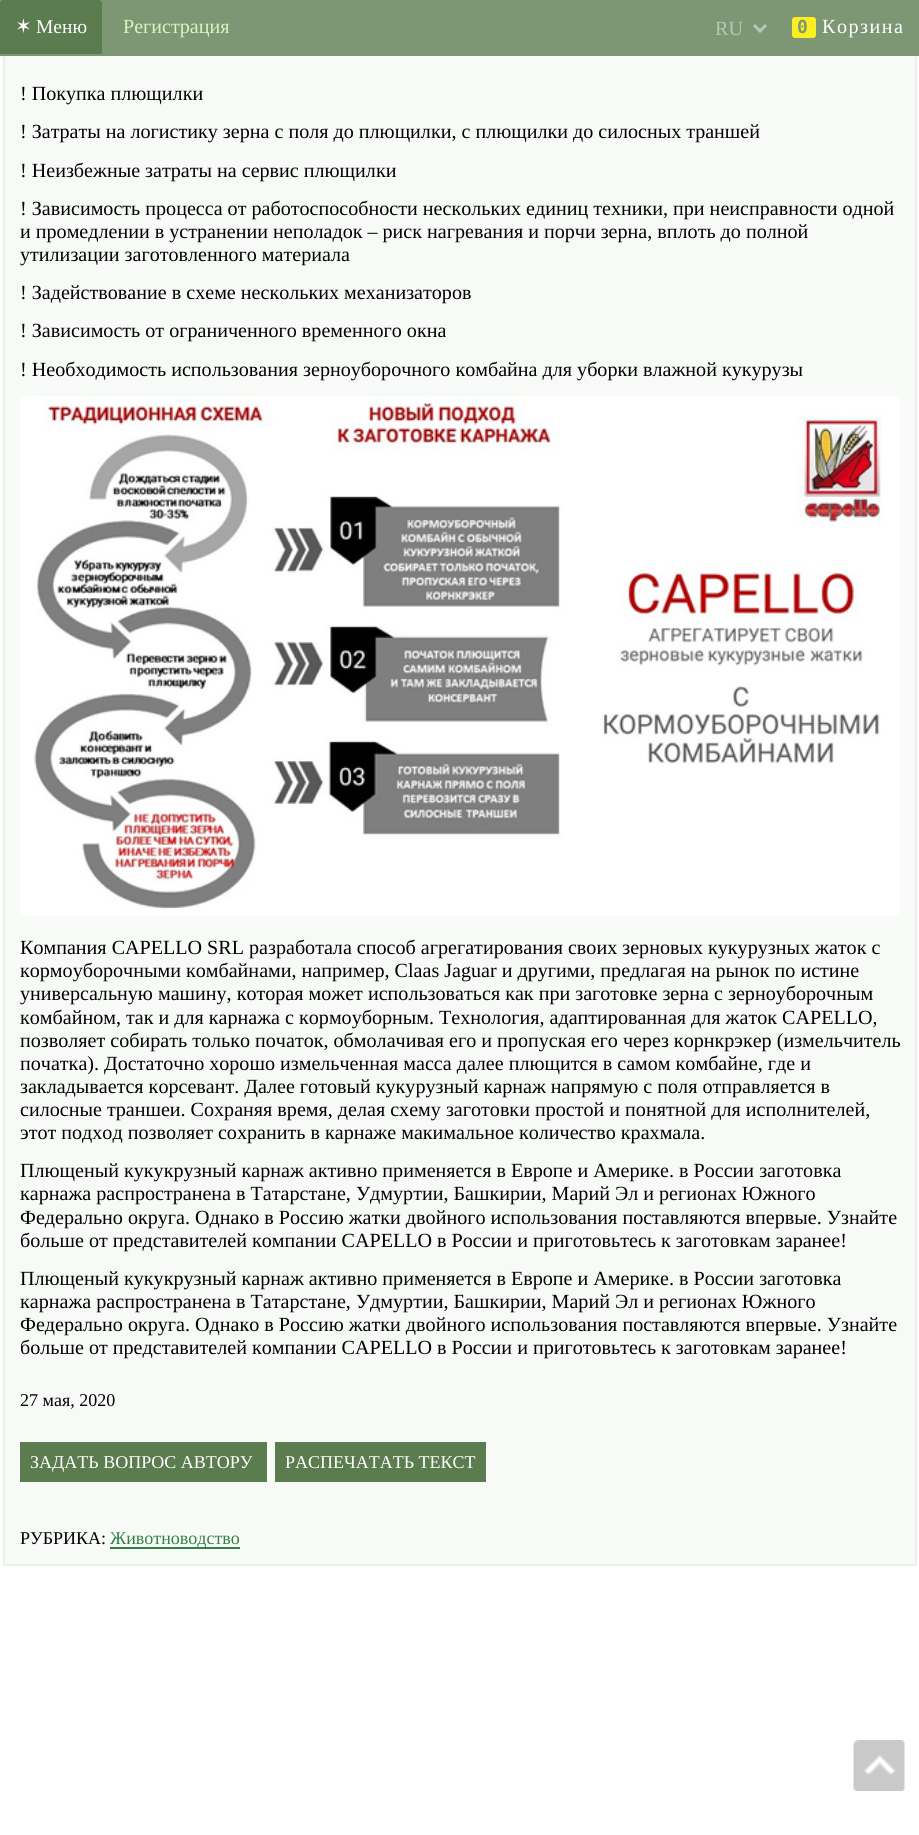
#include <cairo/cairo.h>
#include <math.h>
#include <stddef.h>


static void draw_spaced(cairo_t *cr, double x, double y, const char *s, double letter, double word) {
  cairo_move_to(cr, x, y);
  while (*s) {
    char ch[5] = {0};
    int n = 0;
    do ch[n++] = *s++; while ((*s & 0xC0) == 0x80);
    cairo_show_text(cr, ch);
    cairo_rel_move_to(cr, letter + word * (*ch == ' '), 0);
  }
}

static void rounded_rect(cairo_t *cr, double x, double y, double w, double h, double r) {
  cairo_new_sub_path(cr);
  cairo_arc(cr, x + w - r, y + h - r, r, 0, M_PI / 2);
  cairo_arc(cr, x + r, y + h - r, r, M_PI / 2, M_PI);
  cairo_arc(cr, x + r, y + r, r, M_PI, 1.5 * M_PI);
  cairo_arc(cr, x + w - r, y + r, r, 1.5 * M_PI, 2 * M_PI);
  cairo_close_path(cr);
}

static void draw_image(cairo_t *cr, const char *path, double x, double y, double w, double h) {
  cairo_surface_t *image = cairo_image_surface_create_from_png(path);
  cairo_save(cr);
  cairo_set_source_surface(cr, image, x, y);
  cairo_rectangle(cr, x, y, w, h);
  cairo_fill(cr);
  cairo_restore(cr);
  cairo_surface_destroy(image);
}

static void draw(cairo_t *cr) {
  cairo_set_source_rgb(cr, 1, 1, 1);
  cairo_paint(cr);
  cairo_set_source_rgb(cr, 248 / 255.0, 250 / 255.0, 248 / 255.0);
  cairo_rectangle(cr, 5, 56, 910, 1508);
  cairo_fill(cr);
  cairo_rectangle(cr, 4, -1, 912, 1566);
  cairo_set_source_rgb(cr, 235 / 255.0, 240 / 255.0, 234 / 255.0);
  cairo_stroke(cr);
  cairo_set_source_rgb(cr, 125 / 255.0, 151 / 255.0, 116 / 255.0);
  cairo_rectangle(cr, 0, 0, 919, 56);
  cairo_fill(cr);
  cairo_set_source_rgb(cr, 91 / 255.0, 124 / 255.0, 79 / 255.0);
  cairo_new_path(cr);
  cairo_move_to(cr, 3, 0);
  cairo_line_to(cr, 99, 0);
  cairo_curve_to(cr, 100.5, 0, 102, 1.5, 102, 3);
  cairo_line_to(cr, 102, 54);
  cairo_line_to(cr, 0, 54);
  cairo_line_to(cr, 0, 3);
  cairo_curve_to(cr, 0, 1.5, 1.5, 0, 3, 0);
  cairo_close_path(cr);
  cairo_fill(cr);
  cairo_new_path(cr);
  cairo_move_to(cr, 754, 25);
  cairo_line_to(cr, 760, 31);
  cairo_line_to(cr, 766, 25);
  cairo_set_source_rgb(cr, 184 / 255.0, 198 / 255.0, 179 / 255.0);
  cairo_set_line_width(cr, 3);
  cairo_stroke(cr);
  cairo_set_source_rgb(cr, 253 / 255.0, 238 / 255.0, 33 / 255.0);
  rounded_rect(cr, 792, 17, 24, 21, 3);
  cairo_fill(cr);
  draw_image(cr, "images/1.png", 20, 396, 880, 520);
  cairo_set_source_rgb(cr, 91 / 255.0, 124 / 255.0, 79 / 255.0);
  cairo_rectangle(cr, 20, 1442, 247, 40);
  cairo_fill(cr);
  cairo_rectangle(cr, 275, 1442, 211, 40);
  cairo_fill(cr);
  cairo_set_source_rgb(cr, 49 / 255.0, 130 / 255.0, 66 / 255.0);
  cairo_rectangle(cr, 110, 1547, 130, 2);
  cairo_fill(cr);
  draw_image(cr, "images/2.png", 853, 1740, 52, 51);
  cairo_select_font_face(cr, "DejaVu Sans", CAIRO_FONT_SLANT_NORMAL, CAIRO_FONT_WEIGHT_NORMAL);
  cairo_set_font_size(cr, 20.1);
  cairo_set_source_rgb(cr, 1, 1, 1);
  cairo_move_to(cr, 15, 33);
  cairo_show_text(cr, "✶");
  cairo_select_font_face(cr, "Liberation Serif", CAIRO_FONT_SLANT_NORMAL, CAIRO_FONT_WEIGHT_NORMAL);
  cairo_set_font_size(cr, 19.5);
  cairo_move_to(cr, 36, 33);
  cairo_show_text(cr, "Меню");
  cairo_set_font_size(cr, 20.1);
  cairo_set_source_rgb(cr, 221 / 255.0, 243 / 255.0, 188 / 255.0);
  cairo_move_to(cr, 123, 33);
  cairo_show_text(cr, "Регистрация");
  cairo_save(cr);
  cairo_rectangle(cr, 716, 15, 30, 26);
  cairo_clip(cr);
  cairo_set_source_rgb(cr, 184 / 255.0, 198 / 255.0, 179 / 255.0);
  cairo_move_to(cr, 715, 35);
  cairo_show_text(cr, "RU");
  cairo_restore(cr);
  cairo_select_font_face(cr, "DejaVu Sans Mono", CAIRO_FONT_SLANT_NORMAL, CAIRO_FONT_WEIGHT_BOLD);
  cairo_set_font_size(cr, 18);
  cairo_set_source_rgb(cr, 125 / 255.0, 151 / 255.0, 116 / 255.0);
  draw_spaced(cr, 797, 33, "0", 1.5, 0);
  cairo_select_font_face(cr, "Liberation Serif", CAIRO_FONT_SLANT_NORMAL, CAIRO_FONT_WEIGHT_NORMAL);
  cairo_set_font_size(cr, 20.1);
  cairo_set_source_rgb(cr, 1, 1, 1);
  draw_spaced(cr, 822, 33, "Корзина", 1.5, 0);
  cairo_set_source_rgb(cr, 0, 0, 0);
  cairo_move_to(cr, 20, 100);
  cairo_show_text(cr, "! Покупка плющилки");
  cairo_move_to(cr, 20, 138);
  cairo_show_text(cr, "! Затраты на логистику зерна с поля до плющилки, с плющилки до силосных траншей");
  cairo_move_to(cr, 20, 177);
  cairo_show_text(cr, "! Неизбежные затраты на сервис плющилки");
  cairo_move_to(cr, 20, 215);
  cairo_show_text(cr, "! Зависимость процесса от работоспособности нескольких единиц техники, при неисправности одной");
  cairo_move_to(cr, 20, 238);
  cairo_show_text(cr, "и промедлении в устранении неполадок – риск нагревания и порчи зерна, вплоть до полной");
  cairo_move_to(cr, 20, 261);
  cairo_show_text(cr, "утилизации заготовленного материала");
  cairo_move_to(cr, 20, 299);
  cairo_show_text(cr, "! Задействование в схеме нескольких механизаторов");
  cairo_move_to(cr, 20, 337);
  cairo_show_text(cr, "! Зависимость от ограниченного временного окна");
  cairo_move_to(cr, 20, 376);
  cairo_show_text(cr, "! Необходимость использования зерноуборочного комбайна для уборки влажной кукурузы");
  cairo_move_to(cr, 20, 954);
  cairo_show_text(cr, "Компания CAPELLO SRL разработала способ агрегатирования своих зерновых кукурузных жаток с");
  cairo_move_to(cr, 20, 977);
  cairo_show_text(cr, "кормоуборочными комбайнами, например, Claas Jaguar и другими, предлагая на рынок по истине");
  cairo_move_to(cr, 20, 1000);
  cairo_show_text(cr, "универсальную машину, которая может использоваться как при заготовке зерна с зерноуборочным");
  cairo_move_to(cr, 20, 1024);
  cairo_show_text(cr, "комбайном, так и для карнажа с кормоуборным. Технология, адаптированная для жаток CAPELLO,");
  cairo_move_to(cr, 20, 1047);
  cairo_show_text(cr, "позволяет собирать только початок, обмолачивая его и пропуская его через корнкрэкер (измельчитель");
  cairo_move_to(cr, 20, 1070);
  cairo_show_text(cr, "початка). Достаточно хорошо измельченная масса далее плющится в самом комбайне, где и");
  cairo_move_to(cr, 20, 1093);
  cairo_show_text(cr, "закладывается корсевант. Далее готовый кукурузный карнаж напрямую с поля отправляется в");
  cairo_move_to(cr, 20, 1116);
  cairo_show_text(cr, "силосные траншеи. Сохраняя время, делая схему заготовки простой и понятной для исполнителей,");
  cairo_move_to(cr, 20, 1139);
  cairo_show_text(cr, "этот подход позволяет сохранить в карнаже макимальное количество крахмала.");
  cairo_move_to(cr, 20, 1177);
  cairo_show_text(cr, "Плющеный кукукрузный карнаж активно применяется в Европе и Америке. в России заготовка");
  cairo_move_to(cr, 20, 1200);
  cairo_show_text(cr, "карнажа распространена в Татарстане, Удмуртии, Башкирии, Марий Эл и регионах Южного");
  cairo_move_to(cr, 20, 1224);
  cairo_show_text(cr, "Федерально округа. Однако в Россию жатки двойного использования поставляются впервые. Узнайте");
  cairo_move_to(cr, 20, 1247);
  cairo_show_text(cr, "больше от представителей компании CAPELLO в России и приготовьтесь к заготовкам заранее!");
  cairo_move_to(cr, 20, 1285);
  cairo_show_text(cr, "Плющеный кукукрузный карнаж активно применяется в Европе и Америке. в России заготовка");
  cairo_move_to(cr, 20, 1308);
  cairo_show_text(cr, "карнажа распространена в Татарстане, Удмуртии, Башкирии, Марий Эл и регионах Южного");
  cairo_move_to(cr, 20, 1331);
  cairo_show_text(cr, "Федерально округа. Однако в Россию жатки двойного использования поставляются впервые. Узнайте");
  cairo_move_to(cr, 20, 1354);
  cairo_show_text(cr, "больше от представителей компании CAPELLO в России и приготовьтесь к заготовкам заранее!");
  cairo_set_font_size(cr, 18);
  cairo_move_to(cr, 20, 1406);
  cairo_show_text(cr, "27 мая, 2020");
  cairo_set_source_rgb(cr, 1, 1, 1);
  cairo_move_to(cr, 30, 1468);
  cairo_show_text(cr, "ЗАДАТЬ ВОПРОС АВТОРУ");
  cairo_move_to(cr, 285, 1468);
  cairo_show_text(cr, "РАСПЕЧАТАТЬ ТЕКСТ");
  cairo_set_source_rgb(cr, 0, 0, 0);
  cairo_move_to(cr, 20, 1544);
  cairo_show_text(cr, "РУБРИКА:");
  cairo_set_source_rgb(cr, 49 / 255.0, 130 / 255.0, 66 / 255.0);
  cairo_move_to(cr, 110, 1544);
  cairo_show_text(cr, "Животноводство");
}

int main(void) {
  cairo_surface_t *surface = cairo_image_surface_create(CAIRO_FORMAT_RGB24, 919, 1835);
  cairo_t *cr = cairo_create(surface);
  cairo_font_options_t *options = cairo_font_options_create();
  cairo_font_options_set_hint_metrics(options, CAIRO_HINT_METRICS_OFF);
  cairo_font_options_set_hint_style(options, CAIRO_HINT_STYLE_NONE);
  cairo_set_font_options(cr, options);
  cairo_set_miter_limit(cr, 4);
  draw(cr);
  cairo_surface_write_to_png(surface, "out.png");
  cairo_font_options_destroy(options);
  cairo_destroy(cr);
  cairo_surface_destroy(surface);
  return 0;
}
